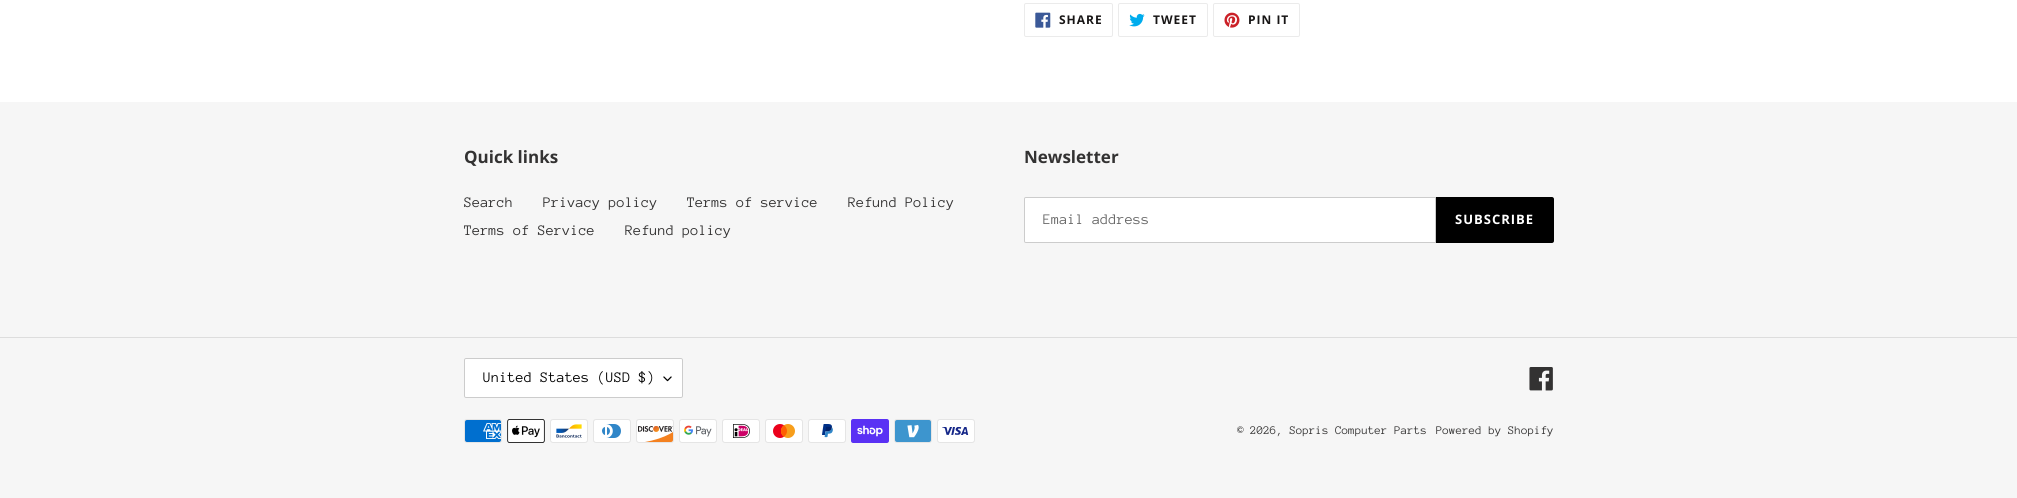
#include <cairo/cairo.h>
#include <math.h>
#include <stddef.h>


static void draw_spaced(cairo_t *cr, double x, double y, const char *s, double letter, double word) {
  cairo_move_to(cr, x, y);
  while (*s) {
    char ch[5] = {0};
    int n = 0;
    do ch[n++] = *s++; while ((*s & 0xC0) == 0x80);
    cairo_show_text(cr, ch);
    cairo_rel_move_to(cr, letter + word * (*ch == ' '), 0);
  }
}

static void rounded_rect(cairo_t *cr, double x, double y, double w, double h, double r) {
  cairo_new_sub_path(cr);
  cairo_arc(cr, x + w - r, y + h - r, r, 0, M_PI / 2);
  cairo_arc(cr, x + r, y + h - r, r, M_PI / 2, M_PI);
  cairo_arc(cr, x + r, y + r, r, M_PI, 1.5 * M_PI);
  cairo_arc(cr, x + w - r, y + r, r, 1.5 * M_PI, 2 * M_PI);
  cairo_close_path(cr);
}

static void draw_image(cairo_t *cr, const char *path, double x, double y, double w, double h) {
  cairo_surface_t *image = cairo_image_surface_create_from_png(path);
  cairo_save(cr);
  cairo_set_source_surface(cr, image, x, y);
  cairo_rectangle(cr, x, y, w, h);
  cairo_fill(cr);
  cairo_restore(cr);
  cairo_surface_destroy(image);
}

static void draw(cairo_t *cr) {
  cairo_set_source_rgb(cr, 1, 1, 1);
  cairo_paint(cr);
  rounded_rect(cr, 1024.5, 3.5, 88, 33, 1.5);
  cairo_set_source_rgb(cr, 235 / 255.0, 235 / 255.0, 235 / 255.0);
  cairo_set_line_width(cr, 1);
  cairo_stroke(cr);
  draw_image(cr, "images/1.png", 1035, 12, 16, 16);
  rounded_rect(cr, 1118.5, 3.5, 89, 33, 1.5);
  cairo_stroke(cr);
  draw_image(cr, "images/2.png", 1129, 13, 16, 14);
  rounded_rect(cr, 1213.5, 3.5, 86, 33, 1.5);
  cairo_stroke(cr);
  draw_image(cr, "images/3.png", 1224, 12, 16, 16);
  cairo_set_source_rgb(cr, 246 / 255.0, 246 / 255.0, 246 / 255.0);
  cairo_rectangle(cr, 0, 102, 2017, 396);
  cairo_fill(cr);
  cairo_set_source_rgb(cr, 1, 1, 1);
  cairo_new_path(cr);
  cairo_move_to(cr, 1026, 197.5);
  cairo_line_to(cr, 1435.5, 197.5);
  cairo_line_to(cr, 1435.5, 242.5);
  cairo_line_to(cr, 1026, 242.5);
  cairo_curve_to(cr, 1025, 242.5, 1024.5, 242, 1024.5, 241);
  cairo_line_to(cr, 1024.5, 199);
  cairo_curve_to(cr, 1024.5, 198, 1025, 197.5, 1026, 197.5);
  cairo_close_path(cr);
  cairo_fill_preserve(cr);
  cairo_set_source_rgb(cr, 204 / 255.0, 204 / 255.0, 204 / 255.0);
  cairo_stroke(cr);
  cairo_set_source_rgb(cr, 0, 0, 0);
  cairo_new_path(cr);
  cairo_move_to(cr, 1436, 197);
  cairo_line_to(cr, 1552, 197);
  cairo_curve_to(cr, 1553, 197, 1554, 198, 1554, 199);
  cairo_line_to(cr, 1554, 241);
  cairo_curve_to(cr, 1554, 242, 1553, 243, 1552, 243);
  cairo_line_to(cr, 1436, 243);
  cairo_close_path(cr);
  cairo_fill(cr);
  cairo_set_source_rgb(cr, 221 / 255.0, 221 / 255.0, 221 / 255.0);
  cairo_rectangle(cr, 0, 337, 2017, 1);
  cairo_fill(cr);
  cairo_set_source_rgb(cr, 1, 1, 1);
  rounded_rect(cr, 464, 358, 219, 40, 2);
  cairo_fill(cr);
  draw_image(cr, "images/4.png", 663, 376, 9, 6);
  rounded_rect(cr, 464.5, 358.5, 218, 39, 1.5);
  cairo_set_source_rgb(cr, 204 / 255.0, 204 / 255.0, 204 / 255.0);
  cairo_stroke(cr);
  draw_image(cr, "images/5.png", 1529, 367, 24, 24);
  draw_image(cr, "images/6.png", 464, 419, 38, 24);
  draw_image(cr, "images/7.png", 507, 419, 38, 24);
  draw_image(cr, "images/8.png", 550, 419, 38, 24);
  draw_image(cr, "images/9.png", 593, 419, 38, 24);
  draw_image(cr, "images/10.png", 636, 419, 38, 24);
  draw_image(cr, "images/11.png", 679, 419, 38, 24);
  draw_image(cr, "images/12.png", 722, 419, 38, 24);
  draw_image(cr, "images/13.png", 765, 419, 38, 24);
  draw_image(cr, "images/14.png", 808, 419, 38, 24);
  draw_image(cr, "images/15.png", 851, 419, 38, 24);
  draw_image(cr, "images/16.png", 894, 419, 38, 24);
  draw_image(cr, "images/17.png", 937, 419, 38, 24);
  cairo_select_font_face(cr, "Open Sans", CAIRO_FONT_SLANT_NORMAL, CAIRO_FONT_WEIGHT_BOLD);
  cairo_set_font_size(cr, 12);
  cairo_set_source_rgb(cr, 24 / 255.0, 22 / 255.0, 22 / 255.0);
  draw_spaced(cr, 1059, 24, "SHARE", 1, 0);
  draw_spaced(cr, 1153, 24, "TWEET", 1, 0);
  draw_spaced(cr, 1248, 24, "PIN IT", 1, 0);
  cairo_set_font_size(cr, 17);
  cairo_set_source_rgb(cr, 51 / 255.0, 50 / 255.0, 50 / 255.0);
  cairo_move_to(cr, 464, 163);
  cairo_show_text(cr, "Quick links");
  cairo_select_font_face(cr, "Anonymous Pro", CAIRO_FONT_SLANT_NORMAL, CAIRO_FONT_WEIGHT_NORMAL);
  cairo_set_font_size(cr, 15);
  cairo_move_to(cr, 464, 207);
  cairo_show_text(cr, "Search");
  cairo_move_to(cr, 543, 207);
  cairo_show_text(cr, "Privacy policy");
  cairo_move_to(cr, 687, 207);
  cairo_show_text(cr, "Terms of service");
  cairo_move_to(cr, 848, 207);
  cairo_show_text(cr, "Refund Policy");
  cairo_move_to(cr, 464, 235);
  cairo_show_text(cr, "Terms of Service");
  cairo_move_to(cr, 625, 235);
  cairo_show_text(cr, "Refund policy");
  cairo_select_font_face(cr, "Open Sans", CAIRO_FONT_SLANT_NORMAL, CAIRO_FONT_WEIGHT_BOLD);
  cairo_set_font_size(cr, 17);
  cairo_move_to(cr, 1024, 163);
  cairo_show_text(cr, "Newsletter");
  cairo_save(cr);
  cairo_rectangle(cr, 1043, 212, 374, 15);
  cairo_clip(cr);
  cairo_select_font_face(cr, "Anonymous Pro", CAIRO_FONT_SLANT_NORMAL, CAIRO_FONT_WEIGHT_NORMAL);
  cairo_set_font_size(cr, 15);
  cairo_set_source_rgb(cr, 102 / 255.0, 102 / 255.0, 102 / 255.0);
  cairo_move_to(cr, 1043, 224);
  cairo_show_text(cr, "Email address");
  cairo_restore(cr);
  cairo_set_font_size(cr, 13);
  cairo_set_source_rgb(cr, 1, 1, 1);
  draw_spaced(cr, 1455, 224, "SUBSCRIBE", 1, 0);
  cairo_select_font_face(cr, "Anonymous Pro", CAIRO_FONT_SLANT_NORMAL, CAIRO_FONT_WEIGHT_NORMAL);
  cairo_set_font_size(cr, 15);
  cairo_set_source_rgb(cr, 0, 0, 0);
  cairo_move_to(cr, 483, 382);
  cairo_show_text(cr, "United States (USD $)");
  cairo_set_font_size(cr, 12);
  cairo_set_source_rgb(cr, 51 / 255.0, 50 / 255.0, 50 / 255.0);
  cairo_move_to(cr, 1237, 434);
  cairo_show_text(cr, "© 2026, Sopris Computer Parts");
  cairo_move_to(cr, 1436, 434);
  cairo_show_text(cr, "Powered by Shopify");
}

int main(void) {
  cairo_surface_t *surface = cairo_image_surface_create(CAIRO_FORMAT_RGB24, 2017, 498);
  cairo_t *cr = cairo_create(surface);
  cairo_font_options_t *options = cairo_font_options_create();
  cairo_font_options_set_hint_metrics(options, CAIRO_HINT_METRICS_OFF);
  cairo_font_options_set_hint_style(options, CAIRO_HINT_STYLE_NONE);
  cairo_set_font_options(cr, options);
  cairo_set_miter_limit(cr, 4);
  draw(cr);
  cairo_surface_write_to_png(surface, "out.png");
  cairo_font_options_destroy(options);
  cairo_destroy(cr);
  cairo_surface_destroy(surface);
  return 0;
}
